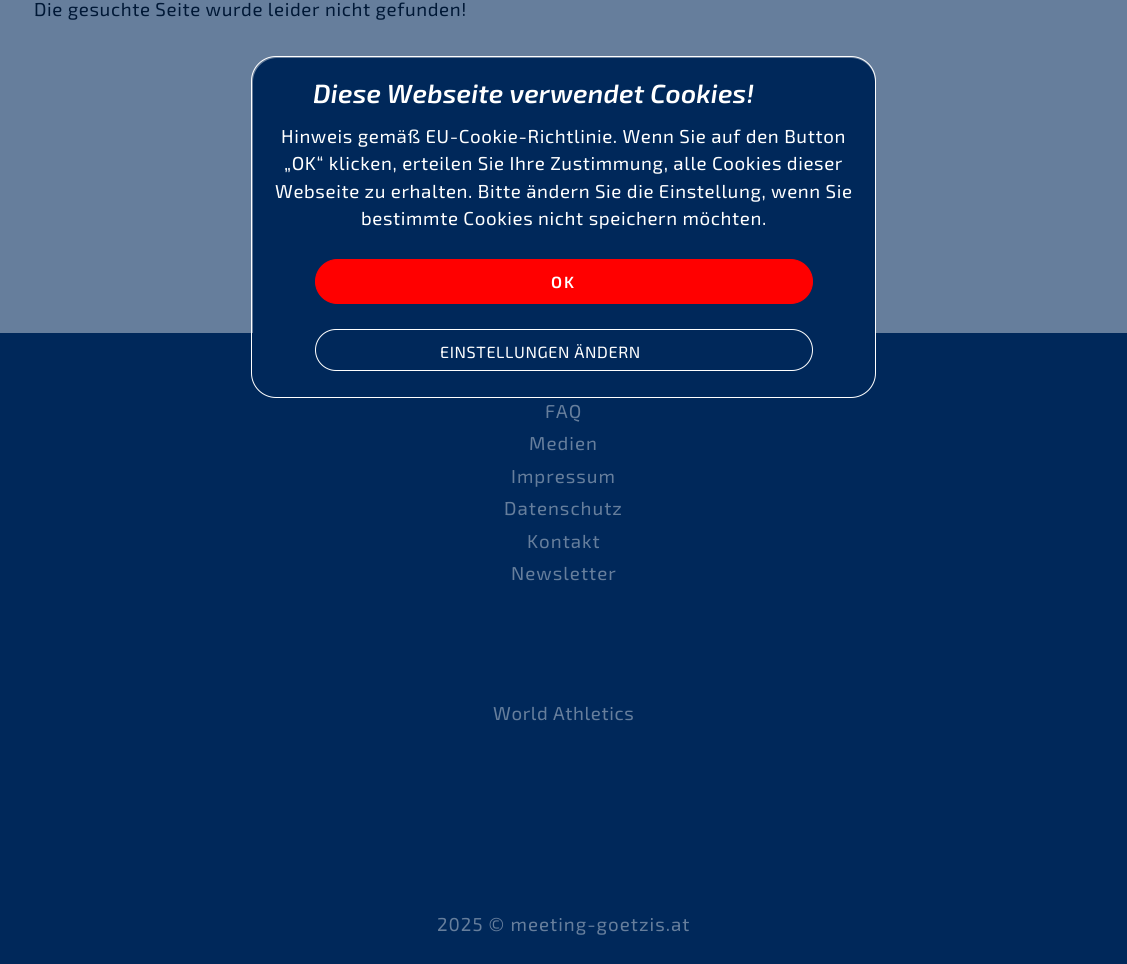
#include <cairo/cairo.h>
#include <math.h>
#include <stddef.h>


static void draw_spaced(cairo_t *cr, double x, double y, const char *s, double letter, double word) {
  cairo_move_to(cr, x, y);
  while (*s) {
    char ch[5] = {0};
    int n = 0;
    do ch[n++] = *s++; while ((*s & 0xC0) == 0x80);
    cairo_show_text(cr, ch);
    cairo_rel_move_to(cr, letter + word * (*ch == ' '), 0);
  }
}

static void rounded_rect(cairo_t *cr, double x, double y, double w, double h, double r) {
  cairo_new_sub_path(cr);
  cairo_arc(cr, x + w - r, y + h - r, r, 0, M_PI / 2);
  cairo_arc(cr, x + r, y + h - r, r, M_PI / 2, M_PI);
  cairo_arc(cr, x + r, y + r, r, M_PI, 1.5 * M_PI);
  cairo_arc(cr, x + w - r, y + r, r, 1.5 * M_PI, 2 * M_PI);
  cairo_close_path(cr);
}

static void draw(cairo_t *cr) {
  cairo_set_source_rgb(cr, 0, 40 / 255.0, 90 / 255.0);
  cairo_paint(cr);
  cairo_set_source_rgb(cr, 102 / 255.0, 126 / 255.0, 156 / 255.0);
  cairo_rectangle(cr, 0, 0, 1127, 333);
  cairo_fill(cr);
  cairo_set_source_rgb(cr, 0, 40 / 255.0, 90 / 255.0);
  rounded_rect(cr, 253, 58, 622, 338, 24);
  cairo_fill(cr);
  rounded_rect(cr, 251.5, 56.5, 624, 341, 24.5);
  cairo_set_source_rgb(cr, 1, 1, 1);
  cairo_set_line_width(cr, 1);
  cairo_stroke(cr);
  cairo_set_source_rgb(cr, 1, 0, 0);
  rounded_rect(cr, 315.5, 259.5, 497, 44, 22);
  cairo_fill_preserve(cr);
  cairo_stroke(cr);
  rounded_rect(cr, 315.5, 329.5, 497, 41, 20.5);
  cairo_set_source_rgb(cr, 1, 1, 1);
  cairo_stroke(cr);
  cairo_select_font_face(cr, "Exo 2", CAIRO_FONT_SLANT_NORMAL, CAIRO_FONT_WEIGHT_NORMAL);
  cairo_set_font_size(cr, 18.75);
  cairo_set_source_rgb(cr, 0, 24 / 255.0, 54 / 255.0);
  draw_spaced(cr, 34, 16, "Die gesuchte Seite wurde leider nicht gefunden!", 0.6, 0);
  cairo_select_font_face(cr, "Exo 2 SemiBold", CAIRO_FONT_SLANT_ITALIC, CAIRO_FONT_WEIGHT_NORMAL);
  cairo_set_font_size(cr, 26.25);
  cairo_set_source_rgb(cr, 1, 1, 1);
  draw_spaced(cr, 313, 103, "Diese Webseite verwendet Cookies!", 0.2, 0);
  cairo_select_font_face(cr, "Exo 2", CAIRO_FONT_SLANT_NORMAL, CAIRO_FONT_WEIGHT_NORMAL);
  cairo_set_font_size(cr, 18.75);
  draw_spaced(cr, 281, 143, "Hinweis gemäß EU-Cookie-Richtlinie. Wenn Sie auf den Button", 0.6, 0);
  draw_spaced(cr, 284, 170, "„OK“ klicken, erteilen Sie Ihre Zustimmung, alle Cookies dieser", 0.6, 0);
  draw_spaced(cr, 275, 198, "Webseite zu erhalten. Bitte ändern Sie die Einstellung, wenn Sie", 0.6, 0);
  draw_spaced(cr, 361, 225, "bestimmte Cookies nicht speichern möchten.", 0.6, 0);
  cairo_select_font_face(cr, "Exo 2 SemiBold", CAIRO_FONT_SLANT_NORMAL, CAIRO_FONT_WEIGHT_NORMAL);
  cairo_set_font_size(cr, 16.25);
  draw_spaced(cr, 551, 288, "OK", 2, 0);
  cairo_select_font_face(cr, "Exo 2", CAIRO_FONT_SLANT_NORMAL, CAIRO_FONT_WEIGHT_NORMAL);
  draw_spaced(cr, 440, 358, "EINSTELLUNGEN ÄNDERN", 0.6, 0);
  cairo_set_font_size(cr, 18.75);
  cairo_set_source_rgb(cr, 102 / 255.0, 126 / 255.0, 156 / 255.0);
  draw_spaced(cr, 545, 418, "FAQ", 1, 0);
  draw_spaced(cr, 529, 450, "Medien", 1, 0);
  draw_spaced(cr, 511, 483, "Impressum", 1, 0);
  draw_spaced(cr, 504, 515, "Datenschutz", 1, 0);
  draw_spaced(cr, 527, 548, "Kontakt", 1, 0);
  draw_spaced(cr, 511, 580, "Newsletter", 1, 0);
  draw_spaced(cr, 493, 720, "World Athletics", 0.6, 0);
  draw_spaced(cr, 437, 931, "2025 © meeting-goetzis.at", 1, 0);
}

int main(void) {
  cairo_surface_t *surface = cairo_image_surface_create(CAIRO_FORMAT_RGB24, 1127, 964);
  cairo_t *cr = cairo_create(surface);
  cairo_font_options_t *options = cairo_font_options_create();
  cairo_font_options_set_hint_metrics(options, CAIRO_HINT_METRICS_OFF);
  cairo_font_options_set_hint_style(options, CAIRO_HINT_STYLE_NONE);
  cairo_set_font_options(cr, options);
  cairo_set_miter_limit(cr, 4);
  draw(cr);
  cairo_surface_write_to_png(surface, "out.png");
  cairo_font_options_destroy(options);
  cairo_destroy(cr);
  cairo_surface_destroy(surface);
  return 0;
}
